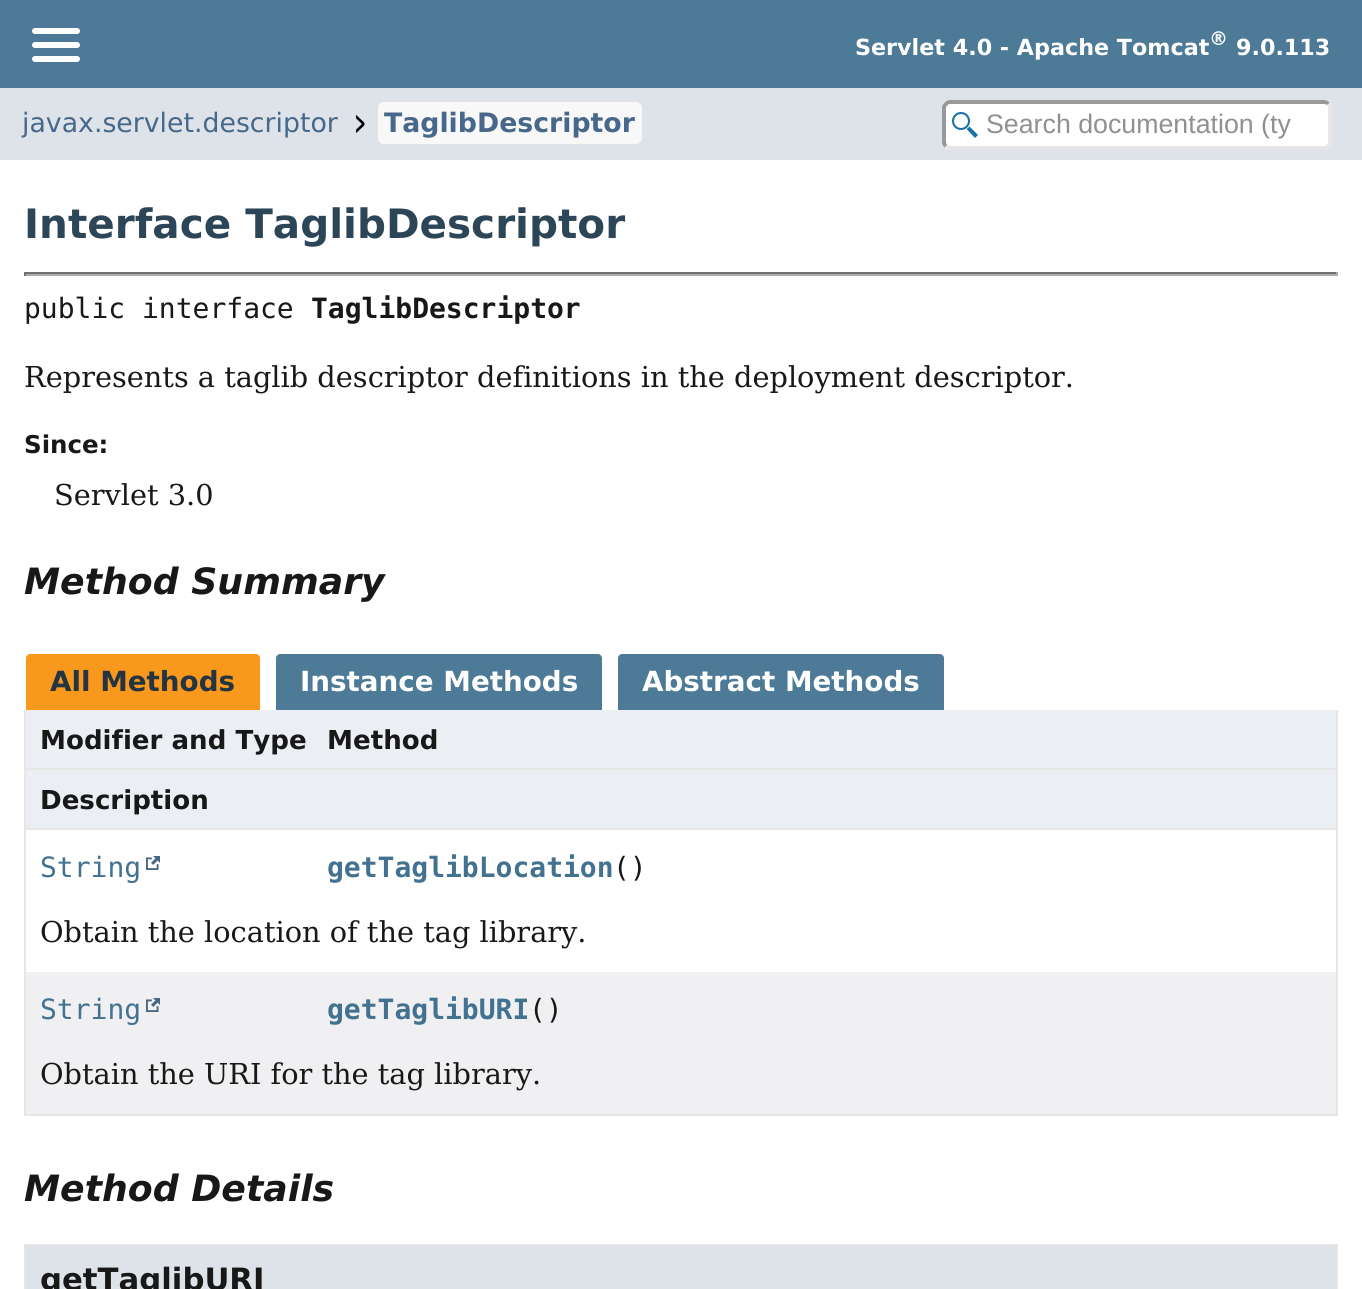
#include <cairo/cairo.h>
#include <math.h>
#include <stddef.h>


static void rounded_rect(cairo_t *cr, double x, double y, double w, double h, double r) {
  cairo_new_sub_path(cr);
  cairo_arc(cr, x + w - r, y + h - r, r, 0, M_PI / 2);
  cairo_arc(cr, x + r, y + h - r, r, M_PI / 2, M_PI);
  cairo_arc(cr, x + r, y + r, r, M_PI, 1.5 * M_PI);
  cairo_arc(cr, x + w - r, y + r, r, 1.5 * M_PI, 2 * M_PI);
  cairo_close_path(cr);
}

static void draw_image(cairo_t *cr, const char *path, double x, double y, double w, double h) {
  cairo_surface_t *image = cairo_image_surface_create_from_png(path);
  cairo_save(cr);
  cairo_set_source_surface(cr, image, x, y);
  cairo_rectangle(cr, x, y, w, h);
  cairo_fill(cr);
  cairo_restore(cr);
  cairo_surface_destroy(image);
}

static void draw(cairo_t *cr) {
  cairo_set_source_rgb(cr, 1, 1, 1);
  cairo_paint(cr);
  cairo_set_source_rgb(cr, 77 / 255.0, 122 / 255.0, 151 / 255.0);
  cairo_rectangle(cr, 0, 0, 1362, 88);
  cairo_fill(cr);
  cairo_set_source_rgb(cr, 1, 1, 1);
  rounded_rect(cr, 32, 28, 48, 6, 3);
  cairo_fill(cr);
  rounded_rect(cr, 32, 42, 48, 6, 3);
  cairo_fill(cr);
  rounded_rect(cr, 32, 56, 48, 6, 3);
  cairo_fill(cr);
  cairo_set_source_rgb(cr, 222 / 255.0, 227 / 255.0, 233 / 255.0);
  cairo_rectangle(cr, 0, 88, 1362, 72);
  cairo_fill(cr);
  draw_image(cr, "images/1.png", 356, 115, 9, 18);
  cairo_set_source_rgb(cr, 248 / 255.0, 248 / 255.0, 248 / 255.0);
  rounded_rect(cr, 378, 102, 264, 42, 6);
  cairo_fill(cr);
  cairo_set_source_rgb(cr, 1, 1, 1);
  rounded_rect(cr, 942, 100, 390, 50, 8);
  cairo_fill(cr);
  cairo_set_source_rgb(cr, 26 / 255.0, 115 / 255.0, 168 / 255.0);
  cairo_new_path(cr);
  cairo_move_to(cr, 969.5, 126.5);
  cairo_curve_to(cr, 968.5, 127.5, 967.5, 128.5, 966.5, 129);
  cairo_line_to(cr, 975, 138);
  cairo_line_to(cr, 978, 135);
  cairo_close_path(cr);
  cairo_fill(cr);
  cairo_arc(cr, 961, 121, 8, 0, 2 * M_PI);
  cairo_set_line_width(cr, 2.1);
  cairo_stroke(cr);
  cairo_new_path(cr);
  cairo_move_to(cr, 1328, 104);
  cairo_curve_to(cr, 1329.5, 105, 1330, 106.5, 1330, 108);
  cairo_line_to(cr, 1330, 142);
  cairo_curve_to(cr, 1330, 143.5, 1329.5, 145, 1328, 146);
  cairo_curve_to(cr, 1327, 147.5, 1325.5, 148, 1324, 148);
  cairo_line_to(cr, 950, 148);
  cairo_curve_to(cr, 948.5, 148, 947, 147.5, 946, 146);
  cairo_set_source_rgb(cr, 230 / 255.0, 230 / 255.0, 230 / 255.0);
  cairo_set_line_width(cr, 4);
  cairo_stroke(cr);
  cairo_new_path(cr);
  cairo_move_to(cr, 946, 146);
  cairo_curve_to(cr, 944.5, 145, 944, 143.5, 944, 142);
  cairo_line_to(cr, 944, 108);
  cairo_curve_to(cr, 944, 106.5, 944.5, 105, 946, 104);
  cairo_curve_to(cr, 947, 102.5, 948.5, 102, 950, 102);
  cairo_line_to(cr, 1324, 102);
  cairo_curve_to(cr, 1325.5, 102, 1327, 102.5, 1328, 104);
  cairo_set_source_rgb(cr, 153 / 255.0, 153 / 255.0, 153 / 255.0);
  cairo_stroke(cr);
  cairo_set_source_rgb(cr, 113 / 255.0, 113 / 255.0, 113 / 255.0);
  cairo_rectangle(cr, 24, 272, 1314, 2);
  cairo_fill(cr);
  cairo_set_source_rgb(cr, 170 / 255.0, 170 / 255.0, 170 / 255.0);
  cairo_rectangle(cr, 1336, 272, 2, 4);
  cairo_fill(cr);
  cairo_rectangle(cr, 24, 274, 1314, 2);
  cairo_fill(cr);
  cairo_set_source_rgb(cr, 113 / 255.0, 113 / 255.0, 113 / 255.0);
  cairo_rectangle(cr, 24, 272, 2, 4);
  cairo_fill(cr);
  cairo_set_source_rgb(cr, 248 / 255.0, 152 / 255.0, 29 / 255.0);
  cairo_new_path(cr);
  cairo_move_to(cr, 30, 654);
  cairo_line_to(cr, 256, 654);
  cairo_curve_to(cr, 258, 654, 260, 656, 260, 658);
  cairo_line_to(cr, 260, 710);
  cairo_line_to(cr, 26, 710);
  cairo_line_to(cr, 26, 658);
  cairo_curve_to(cr, 26, 656, 28, 654, 30, 654);
  cairo_close_path(cr);
  cairo_fill(cr);
  cairo_set_source_rgb(cr, 77 / 255.0, 122 / 255.0, 151 / 255.0);
  cairo_new_path(cr);
  cairo_move_to(cr, 280, 654);
  cairo_line_to(cr, 598, 654);
  cairo_curve_to(cr, 600, 654, 602, 656, 602, 658);
  cairo_line_to(cr, 602, 710);
  cairo_line_to(cr, 276, 710);
  cairo_line_to(cr, 276, 658);
  cairo_curve_to(cr, 276, 656, 278, 654, 280, 654);
  cairo_close_path(cr);
  cairo_fill(cr);
  cairo_new_path(cr);
  cairo_move_to(cr, 622, 654);
  cairo_line_to(cr, 940, 654);
  cairo_curve_to(cr, 942, 654, 944, 656, 944, 658);
  cairo_line_to(cr, 944, 710);
  cairo_line_to(cr, 618, 710);
  cairo_line_to(cr, 618, 658);
  cairo_curve_to(cr, 618, 656, 620, 654, 622, 654);
  cairo_close_path(cr);
  cairo_fill(cr);
  cairo_set_source_rgb(cr, 230 / 255.0, 230 / 255.0, 230 / 255.0);
  cairo_rectangle(cr, 1336, 710, 2, 406);
  cairo_fill(cr);
  cairo_rectangle(cr, 24, 1114, 1314, 2);
  cairo_fill(cr);
  cairo_rectangle(cr, 24, 710, 2, 406);
  cairo_fill(cr);
  cairo_set_source_rgb(cr, 235 / 255.0, 239 / 255.0, 244 / 255.0);
  cairo_rectangle(cr, 26, 710, 1310, 58);
  cairo_fill(cr);
  cairo_set_source_rgb(cr, 230 / 255.0, 230 / 255.0, 230 / 255.0);
  cairo_rectangle(cr, 26, 768, 1310, 2);
  cairo_fill(cr);
  cairo_set_source_rgb(cr, 235 / 255.0, 239 / 255.0, 244 / 255.0);
  cairo_rectangle(cr, 26, 770, 1310, 58);
  cairo_fill(cr);
  cairo_set_source_rgb(cr, 230 / 255.0, 230 / 255.0, 230 / 255.0);
  cairo_rectangle(cr, 26, 828, 1310, 2);
  cairo_fill(cr);
  draw_image(cr, "images/2.png", 146, 856, 14, 14);
  cairo_set_source_rgb(cr, 240 / 255.0, 240 / 255.0, 242 / 255.0);
  cairo_rectangle(cr, 26, 972, 1310, 142);
  cairo_fill(cr);
  draw_image(cr, "images/3.png", 146, 998, 14, 14);
  cairo_set_source_rgb(cr, 222 / 255.0, 227 / 255.0, 233 / 255.0);
  cairo_rectangle(cr, 25, 1245, 1312, 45);
  cairo_fill_preserve(cr);
  cairo_set_source_rgb(cr, 230 / 255.0, 230 / 255.0, 230 / 255.0);
  cairo_set_line_width(cr, 2);
  cairo_stroke(cr);
  cairo_select_font_face(cr, "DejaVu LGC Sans", CAIRO_FONT_SLANT_NORMAL, CAIRO_FONT_WEIGHT_BOLD);
  cairo_set_font_size(cr, 22.25);
  cairo_set_source_rgb(cr, 1, 1, 1);
  cairo_move_to(cr, 855, 55);
  cairo_show_text(cr, "Servlet 4.0 - Apache Tomcat");
  cairo_set_font_size(cr, 19);
  cairo_move_to(cr, 1209, 45);
  cairo_show_text(cr, "®");
  cairo_set_font_size(cr, 22.25);
  cairo_move_to(cr, 1236, 55);
  cairo_show_text(cr, "9.0.113");
  cairo_select_font_face(cr, "DejaVu LGC Sans", CAIRO_FONT_SLANT_NORMAL, CAIRO_FONT_WEIGHT_NORMAL);
  cairo_set_font_size(cr, 26.75);
  cairo_set_source_rgb(cr, 71 / 255.0, 104 / 255.0, 138 / 255.0);
  cairo_move_to(cr, 22, 132);
  cairo_show_text(cr, "javax.servlet.descriptor");
  cairo_select_font_face(cr, "DejaVu LGC Sans", CAIRO_FONT_SLANT_NORMAL, CAIRO_FONT_WEIGHT_BOLD);
  cairo_move_to(cr, 384, 132);
  cairo_show_text(cr, "TaglibDescriptor");
  cairo_select_font_face(cr, "Liberation Sans", CAIRO_FONT_SLANT_NORMAL, CAIRO_FONT_WEIGHT_NORMAL);
  cairo_set_source_rgb(cr, 144 / 255.0, 144 / 255.0, 144 / 255.0);
  cairo_move_to(cr, 986, 133);
  cairo_show_text(cr, "Search documentation (ty");
  cairo_select_font_face(cr, "DejaVu LGC Sans", CAIRO_FONT_SLANT_NORMAL, CAIRO_FONT_WEIGHT_BOLD);
  cairo_set_font_size(cr, 40.5);
  cairo_set_source_rgb(cr, 44 / 255.0, 69 / 255.0, 87 / 255.0);
  cairo_move_to(cr, 24, 238);
  cairo_show_text(cr, "Interface TaglibDescriptor");
  cairo_select_font_face(cr, "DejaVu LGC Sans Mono", CAIRO_FONT_SLANT_NORMAL, CAIRO_FONT_WEIGHT_NORMAL);
  cairo_set_font_size(cr, 28);
  cairo_set_source_rgb(cr, 24 / 255.0, 24 / 255.0, 24 / 255.0);
  cairo_move_to(cr, 24, 318);
  cairo_show_text(cr, "public interface");
  cairo_select_font_face(cr, "DejaVu LGC Sans Mono", CAIRO_FONT_SLANT_NORMAL, CAIRO_FONT_WEIGHT_BOLD);
  cairo_move_to(cr, 311, 318);
  cairo_show_text(cr, "TaglibDescriptor");
  cairo_select_font_face(cr, "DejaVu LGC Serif", CAIRO_FONT_SLANT_NORMAL, CAIRO_FONT_WEIGHT_NORMAL);
  cairo_set_font_size(cr, 28.8);
  cairo_move_to(cr, 24, 387);
  cairo_show_text(cr, "Represents a taglib descriptor definitions in the deployment descriptor.");
  cairo_select_font_face(cr, "DejaVu LGC Sans", CAIRO_FONT_SLANT_NORMAL, CAIRO_FONT_WEIGHT_BOLD);
  cairo_set_font_size(cr, 24.5);
  cairo_move_to(cr, 24, 453);
  cairo_show_text(cr, "Since:");
  cairo_select_font_face(cr, "DejaVu LGC Serif", CAIRO_FONT_SLANT_NORMAL, CAIRO_FONT_WEIGHT_NORMAL);
  cairo_set_font_size(cr, 28.8);
  cairo_move_to(cr, 54, 505);
  cairo_show_text(cr, "Servlet 3.0");
  cairo_select_font_face(cr, "DejaVu LGC Sans", CAIRO_FONT_SLANT_ITALIC, CAIRO_FONT_WEIGHT_BOLD);
  cairo_set_font_size(cr, 36.25);
  cairo_move_to(cr, 24, 594);
  cairo_show_text(cr, "Method Summary");
  cairo_select_font_face(cr, "DejaVu LGC Sans", CAIRO_FONT_SLANT_NORMAL, CAIRO_FONT_WEIGHT_BOLD);
  cairo_set_font_size(cr, 27.75);
  cairo_set_source_rgb(cr, 37 / 255.0, 52 / 255.0, 65 / 255.0);
  cairo_move_to(cr, 50, 691);
  cairo_show_text(cr, "All Methods");
  cairo_set_source_rgb(cr, 1, 1, 1);
  cairo_move_to(cr, 300, 691);
  cairo_show_text(cr, "Instance Methods");
  cairo_move_to(cr, 642, 691);
  cairo_show_text(cr, "Abstract Methods");
  cairo_set_font_size(cr, 26.1);
  cairo_set_source_rgb(cr, 24 / 255.0, 24 / 255.0, 24 / 255.0);
  cairo_move_to(cr, 40, 749);
  cairo_show_text(cr, "Modifier and Type");
  cairo_move_to(cr, 327, 749);
  cairo_show_text(cr, "Method");
  cairo_move_to(cr, 40, 809);
  cairo_show_text(cr, "Description");
  cairo_select_font_face(cr, "DejaVu LGC Sans Mono", CAIRO_FONT_SLANT_NORMAL, CAIRO_FONT_WEIGHT_NORMAL);
  cairo_set_font_size(cr, 28);
  cairo_set_source_rgb(cr, 67 / 255.0, 114 / 255.0, 145 / 255.0);
  cairo_move_to(cr, 40, 877);
  cairo_show_text(cr, "String");
  cairo_select_font_face(cr, "DejaVu LGC Sans Mono", CAIRO_FONT_SLANT_NORMAL, CAIRO_FONT_WEIGHT_BOLD);
  cairo_move_to(cr, 327, 877);
  cairo_show_text(cr, "getTaglibLocation");
  cairo_select_font_face(cr, "DejaVu LGC Sans Mono", CAIRO_FONT_SLANT_NORMAL, CAIRO_FONT_WEIGHT_NORMAL);
  cairo_set_source_rgb(cr, 24 / 255.0, 24 / 255.0, 24 / 255.0);
  cairo_move_to(cr, 613, 877);
  cairo_show_text(cr, "()");
  cairo_select_font_face(cr, "DejaVu LGC Serif", CAIRO_FONT_SLANT_NORMAL, CAIRO_FONT_WEIGHT_NORMAL);
  cairo_set_font_size(cr, 28.8);
  cairo_move_to(cr, 40, 942);
  cairo_show_text(cr, "Obtain the location of the tag library.");
  cairo_select_font_face(cr, "DejaVu LGC Sans Mono", CAIRO_FONT_SLANT_NORMAL, CAIRO_FONT_WEIGHT_NORMAL);
  cairo_set_font_size(cr, 28);
  cairo_set_source_rgb(cr, 67 / 255.0, 114 / 255.0, 145 / 255.0);
  cairo_move_to(cr, 40, 1019);
  cairo_show_text(cr, "String");
  cairo_select_font_face(cr, "DejaVu LGC Sans Mono", CAIRO_FONT_SLANT_NORMAL, CAIRO_FONT_WEIGHT_BOLD);
  cairo_move_to(cr, 327, 1019);
  cairo_show_text(cr, "getTaglibURI");
  cairo_select_font_face(cr, "DejaVu LGC Sans Mono", CAIRO_FONT_SLANT_NORMAL, CAIRO_FONT_WEIGHT_NORMAL);
  cairo_set_source_rgb(cr, 24 / 255.0, 24 / 255.0, 24 / 255.0);
  cairo_move_to(cr, 529, 1019);
  cairo_show_text(cr, "()");
  cairo_select_font_face(cr, "DejaVu LGC Serif", CAIRO_FONT_SLANT_NORMAL, CAIRO_FONT_WEIGHT_NORMAL);
  cairo_set_font_size(cr, 28.8);
  cairo_move_to(cr, 40, 1084);
  cairo_show_text(cr, "Obtain the URI for the tag library.");
  cairo_select_font_face(cr, "DejaVu LGC Sans", CAIRO_FONT_SLANT_ITALIC, CAIRO_FONT_WEIGHT_BOLD);
  cairo_set_font_size(cr, 36.25);
  cairo_move_to(cr, 24, 1201);
  cairo_show_text(cr, "Method Details");
  cairo_select_font_face(cr, "DejaVu LGC Sans", CAIRO_FONT_SLANT_NORMAL, CAIRO_FONT_WEIGHT_BOLD);
  cairo_set_font_size(cr, 30.75);
  cairo_move_to(cr, 40, 1290);
  cairo_show_text(cr, "getTaglibURI");
}

int main(void) {
  cairo_surface_t *surface = cairo_image_surface_create(CAIRO_FORMAT_RGB24, 1362, 1289);
  cairo_t *cr = cairo_create(surface);
  cairo_font_options_t *options = cairo_font_options_create();
  cairo_font_options_set_hint_metrics(options, CAIRO_HINT_METRICS_OFF);
  cairo_font_options_set_hint_style(options, CAIRO_HINT_STYLE_NONE);
  cairo_set_font_options(cr, options);
  cairo_set_miter_limit(cr, 4);
  draw(cr);
  cairo_surface_write_to_png(surface, "out.png");
  cairo_font_options_destroy(options);
  cairo_destroy(cr);
  cairo_surface_destroy(surface);
  return 0;
}
